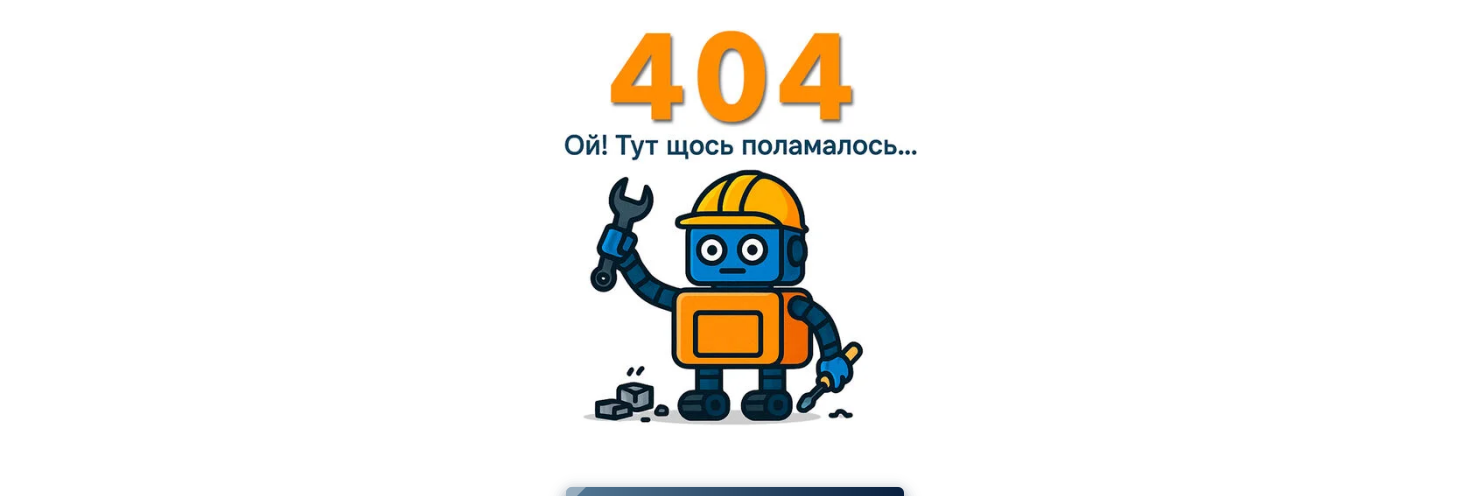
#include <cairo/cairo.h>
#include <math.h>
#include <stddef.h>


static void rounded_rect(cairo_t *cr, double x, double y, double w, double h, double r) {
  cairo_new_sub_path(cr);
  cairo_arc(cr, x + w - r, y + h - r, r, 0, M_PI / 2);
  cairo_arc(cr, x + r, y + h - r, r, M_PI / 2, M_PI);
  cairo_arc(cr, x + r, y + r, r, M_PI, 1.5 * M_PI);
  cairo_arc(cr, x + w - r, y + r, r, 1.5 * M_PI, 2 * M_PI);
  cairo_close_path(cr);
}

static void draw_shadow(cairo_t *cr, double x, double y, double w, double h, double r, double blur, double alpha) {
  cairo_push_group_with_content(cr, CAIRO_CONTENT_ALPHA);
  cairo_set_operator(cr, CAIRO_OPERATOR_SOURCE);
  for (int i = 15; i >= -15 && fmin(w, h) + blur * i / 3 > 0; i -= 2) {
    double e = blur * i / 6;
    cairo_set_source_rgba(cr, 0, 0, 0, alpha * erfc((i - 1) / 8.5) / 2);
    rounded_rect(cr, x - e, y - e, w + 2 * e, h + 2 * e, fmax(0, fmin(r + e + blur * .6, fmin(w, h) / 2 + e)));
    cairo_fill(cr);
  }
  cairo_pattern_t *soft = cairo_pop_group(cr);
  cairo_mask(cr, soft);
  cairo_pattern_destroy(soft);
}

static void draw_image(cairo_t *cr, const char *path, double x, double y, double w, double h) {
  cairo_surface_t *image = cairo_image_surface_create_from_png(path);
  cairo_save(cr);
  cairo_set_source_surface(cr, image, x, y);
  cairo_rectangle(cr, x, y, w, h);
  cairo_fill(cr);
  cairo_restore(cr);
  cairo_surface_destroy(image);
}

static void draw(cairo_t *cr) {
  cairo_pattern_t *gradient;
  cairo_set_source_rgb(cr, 1, 1, 1);
  cairo_paint(cr);
  draw_image(cr, "images/1.png", 560, 29, 357, 397);
  cairo_set_source_rgb(cr, 9 / 255.0, 32 / 255.0, 63 / 255.0);
  draw_shadow(cr, 566, 492, 338, 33, 6, 7.5, 0.5);
  gradient = cairo_pattern_create_linear(904, 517, 566, 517);
  cairo_pattern_add_color_stop_rgba(gradient, 0, 9 / 255.0, 32 / 255.0, 63 / 255.0, 1);
  cairo_pattern_add_color_stop_rgba(gradient, 1, 83 / 255.0, 120 / 255.0, 149 / 255.0, 1);
  cairo_set_source(cr, gradient);
  cairo_pattern_destroy(gradient);
  rounded_rect(cr, 566, 487, 338, 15, 6);
  cairo_fill(cr);
  gradient = cairo_pattern_create_linear(511, 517, 556, 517);
  cairo_pattern_add_color_stop_rgba(gradient, 0, 1, 1, 1, 0.1);
  cairo_pattern_add_color_stop_rgba(gradient, 1, 1, 1, 1, 0.4);
  cairo_set_source(cr, gradient);
  cairo_pattern_destroy(gradient);
  cairo_new_path(cr);
  cairo_move_to(cr, 572, 487);
  cairo_curve_to(cr, 568.5, 487, 566, 489.5, 566, 493);
  cairo_line_to(cr, 566, 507);
  cairo_line_to(cr, 586, 487);
  cairo_close_path(cr);
  cairo_fill(cr);
}

int main(void) {
  cairo_surface_t *surface = cairo_image_surface_create(CAIRO_FORMAT_RGB24, 1470, 496);
  cairo_t *cr = cairo_create(surface);
  cairo_font_options_t *options = cairo_font_options_create();
  cairo_font_options_set_hint_metrics(options, CAIRO_HINT_METRICS_OFF);
  cairo_font_options_set_hint_style(options, CAIRO_HINT_STYLE_NONE);
  cairo_set_font_options(cr, options);
  cairo_set_miter_limit(cr, 4);
  draw(cr);
  cairo_surface_write_to_png(surface, "out.png");
  cairo_font_options_destroy(options);
  cairo_destroy(cr);
  cairo_surface_destroy(surface);
  return 0;
}
